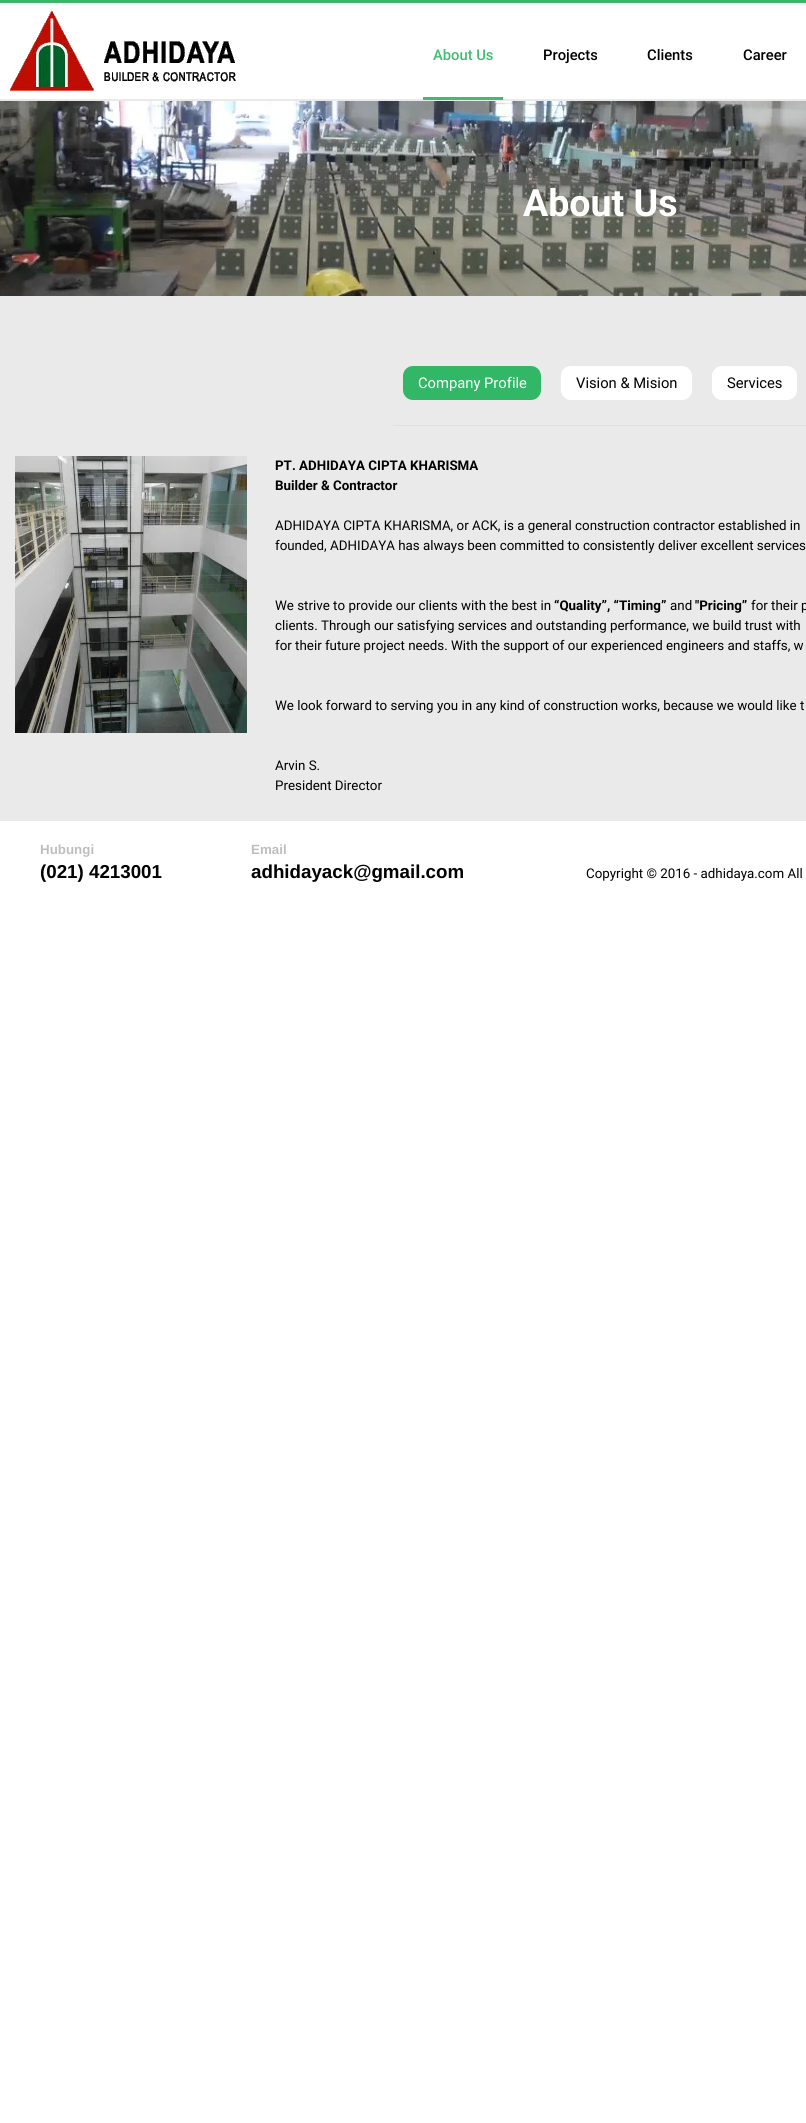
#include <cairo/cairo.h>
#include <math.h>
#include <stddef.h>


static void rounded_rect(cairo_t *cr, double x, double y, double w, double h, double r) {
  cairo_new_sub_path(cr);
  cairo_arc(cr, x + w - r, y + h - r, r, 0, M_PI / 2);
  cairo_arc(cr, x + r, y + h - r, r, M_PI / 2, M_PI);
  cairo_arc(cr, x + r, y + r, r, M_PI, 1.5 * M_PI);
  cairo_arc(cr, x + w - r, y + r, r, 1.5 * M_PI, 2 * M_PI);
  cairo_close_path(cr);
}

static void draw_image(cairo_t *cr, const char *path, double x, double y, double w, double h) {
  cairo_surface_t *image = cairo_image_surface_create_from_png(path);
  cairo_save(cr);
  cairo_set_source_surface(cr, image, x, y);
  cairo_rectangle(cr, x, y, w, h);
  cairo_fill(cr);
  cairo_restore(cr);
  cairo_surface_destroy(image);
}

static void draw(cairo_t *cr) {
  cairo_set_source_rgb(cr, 1, 1, 1);
  cairo_paint(cr);
  cairo_set_source_rgb(cr, 234 / 255.0, 234 / 255.0, 234 / 255.0);
  cairo_rectangle(cr, 0, 99, 806, 722);
  cairo_fill(cr);
  draw_image(cr, "images/1.png", 0, 0, 806, 99);
  draw_image(cr, "images/2.png", 10, 11, 226, 80);
  cairo_set_source_rgb(cr, 64 / 255.0, 188 / 255.0, 113 / 255.0);
  cairo_rectangle(cr, 423, 97, 80, 3);
  cairo_fill(cr);
  draw_image(cr, "images/3.png", 0, 101, 806, 195);
  cairo_set_source_rgb(cr, 224 / 255.0, 224 / 255.0, 224 / 255.0);
  cairo_rectangle(cr, 393, 425, 413, 1);
  cairo_fill(cr);
  cairo_set_source_rgb(cr, 50 / 255.0, 183 / 255.0, 103 / 255.0);
  rounded_rect(cr, 403, 366, 138, 34, 10);
  cairo_fill(cr);
  cairo_set_source_rgb(cr, 1, 1, 1);
  rounded_rect(cr, 561, 366, 131, 34, 10);
  cairo_fill(cr);
  rounded_rect(cr, 712, 366, 85, 34, 10);
  cairo_fill(cr);
  draw_image(cr, "images/4.png", 15, 456, 232, 277);
  cairo_select_font_face(cr, "Roboto Medium", CAIRO_FONT_SLANT_NORMAL, CAIRO_FONT_WEIGHT_NORMAL);
  cairo_set_font_size(cr, 14.75);
  cairo_set_source_rgb(cr, 64 / 255.0, 188 / 255.0, 113 / 255.0);
  cairo_move_to(cr, 433, 60);
  cairo_show_text(cr, "About Us");
  cairo_set_source_rgb(cr, 0, 0, 0);
  cairo_move_to(cr, 543, 60);
  cairo_show_text(cr, "Projects");
  cairo_move_to(cr, 647, 60);
  cairo_show_text(cr, "Clients");
  cairo_move_to(cr, 743, 60);
  cairo_show_text(cr, "Career");
  cairo_select_font_face(cr, "Roboto", CAIRO_FONT_SLANT_NORMAL, CAIRO_FONT_WEIGHT_BOLD);
  cairo_set_font_size(cr, 37.5);
  cairo_set_source_rgb(cr, 1, 1, 1);
  cairo_move_to(cr, 523, 216);
  cairo_show_text(cr, "About Us");
  cairo_select_font_face(cr, "Roboto", CAIRO_FONT_SLANT_NORMAL, CAIRO_FONT_WEIGHT_NORMAL);
  cairo_set_font_size(cr, 14.75);
  cairo_move_to(cr, 418, 388);
  cairo_show_text(cr, "Company Profile");
  cairo_set_source_rgb(cr, 0, 0, 0);
  cairo_move_to(cr, 576, 388);
  cairo_show_text(cr, "Vision & Mision");
  cairo_move_to(cr, 727, 388);
  cairo_show_text(cr, "Services");
  cairo_select_font_face(cr, "Roboto", CAIRO_FONT_SLANT_NORMAL, CAIRO_FONT_WEIGHT_BOLD);
  cairo_set_font_size(cr, 13.35);
  cairo_move_to(cr, 275, 470);
  cairo_show_text(cr, "PT. ADHIDAYA CIPTA KHARISMA");
  cairo_move_to(cr, 275, 490);
  cairo_show_text(cr, "Builder & Contractor");
  cairo_select_font_face(cr, "Roboto", CAIRO_FONT_SLANT_NORMAL, CAIRO_FONT_WEIGHT_NORMAL);
  cairo_move_to(cr, 275, 530);
  cairo_show_text(cr, "ADHIDAYA CIPTA KHARISMA, or ACK, is a general construction contractor established in");
  cairo_move_to(cr, 275, 550);
  cairo_show_text(cr, "founded, ADHIDAYA has always been committed to consistently deliver excellent services");
  cairo_move_to(cr, 275, 610);
  cairo_show_text(cr, "We strive to provide our clients with the best in");
  cairo_select_font_face(cr, "Roboto", CAIRO_FONT_SLANT_NORMAL, CAIRO_FONT_WEIGHT_BOLD);
  cairo_move_to(cr, 554, 610);
  cairo_show_text(cr, "“Quality”, “Timing”");
  cairo_select_font_face(cr, "Roboto", CAIRO_FONT_SLANT_NORMAL, CAIRO_FONT_WEIGHT_NORMAL);
  cairo_move_to(cr, 670, 610);
  cairo_show_text(cr, "and");
  cairo_select_font_face(cr, "Roboto", CAIRO_FONT_SLANT_NORMAL, CAIRO_FONT_WEIGHT_BOLD);
  cairo_move_to(cr, 695, 610);
  cairo_show_text(cr, "\"Pricing”");
  cairo_select_font_face(cr, "Roboto", CAIRO_FONT_SLANT_NORMAL, CAIRO_FONT_WEIGHT_NORMAL);
  cairo_move_to(cr, 751, 610);
  cairo_show_text(cr, "for their p");
  cairo_move_to(cr, 275, 630);
  cairo_show_text(cr, "clients. Through our satisfying services and outstanding performance, we build trust with");
  cairo_move_to(cr, 275, 650);
  cairo_show_text(cr, "for their future project needs. With the support of our experienced engineers and staffs, w");
  cairo_move_to(cr, 275, 710);
  cairo_show_text(cr, "We look forward to serving you in any kind of construction works, because we would like t");
  cairo_move_to(cr, 275, 770);
  cairo_show_text(cr, "Arvin S.");
  cairo_move_to(cr, 275, 790);
  cairo_show_text(cr, "President Director");
  cairo_select_font_face(cr, "Liberation Sans", CAIRO_FONT_SLANT_NORMAL, CAIRO_FONT_WEIGHT_BOLD);
  cairo_set_source_rgb(cr, 190 / 255.0, 190 / 255.0, 190 / 255.0);
  cairo_move_to(cr, 40, 854);
  cairo_show_text(cr, "Hubungi");
  cairo_set_font_size(cr, 18.75);
  cairo_set_source_rgb(cr, 0, 0, 0);
  cairo_move_to(cr, 40, 878);
  cairo_show_text(cr, "(021) 4213001");
  cairo_set_font_size(cr, 13.35);
  cairo_set_source_rgb(cr, 190 / 255.0, 190 / 255.0, 190 / 255.0);
  cairo_move_to(cr, 251, 854);
  cairo_show_text(cr, "Email");
  cairo_set_font_size(cr, 18.75);
  cairo_set_source_rgb(cr, 0, 0, 0);
  cairo_move_to(cr, 251, 878);
  cairo_show_text(cr, "adhidayack@gmail.com");
  cairo_select_font_face(cr, "Roboto", CAIRO_FONT_SLANT_NORMAL, CAIRO_FONT_WEIGHT_NORMAL);
  cairo_set_font_size(cr, 13.35);
  cairo_move_to(cr, 586, 878);
  cairo_show_text(cr, "Copyright © 2016 - adhidaya.com All");
}

int main(void) {
  cairo_surface_t *surface = cairo_image_surface_create(CAIRO_FORMAT_RGB24, 806, 2123);
  cairo_t *cr = cairo_create(surface);
  cairo_font_options_t *options = cairo_font_options_create();
  cairo_font_options_set_hint_metrics(options, CAIRO_HINT_METRICS_OFF);
  cairo_font_options_set_hint_style(options, CAIRO_HINT_STYLE_NONE);
  cairo_set_font_options(cr, options);
  cairo_set_miter_limit(cr, 4);
  draw(cr);
  cairo_surface_write_to_png(surface, "out.png");
  cairo_font_options_destroy(options);
  cairo_destroy(cr);
  cairo_surface_destroy(surface);
  return 0;
}
